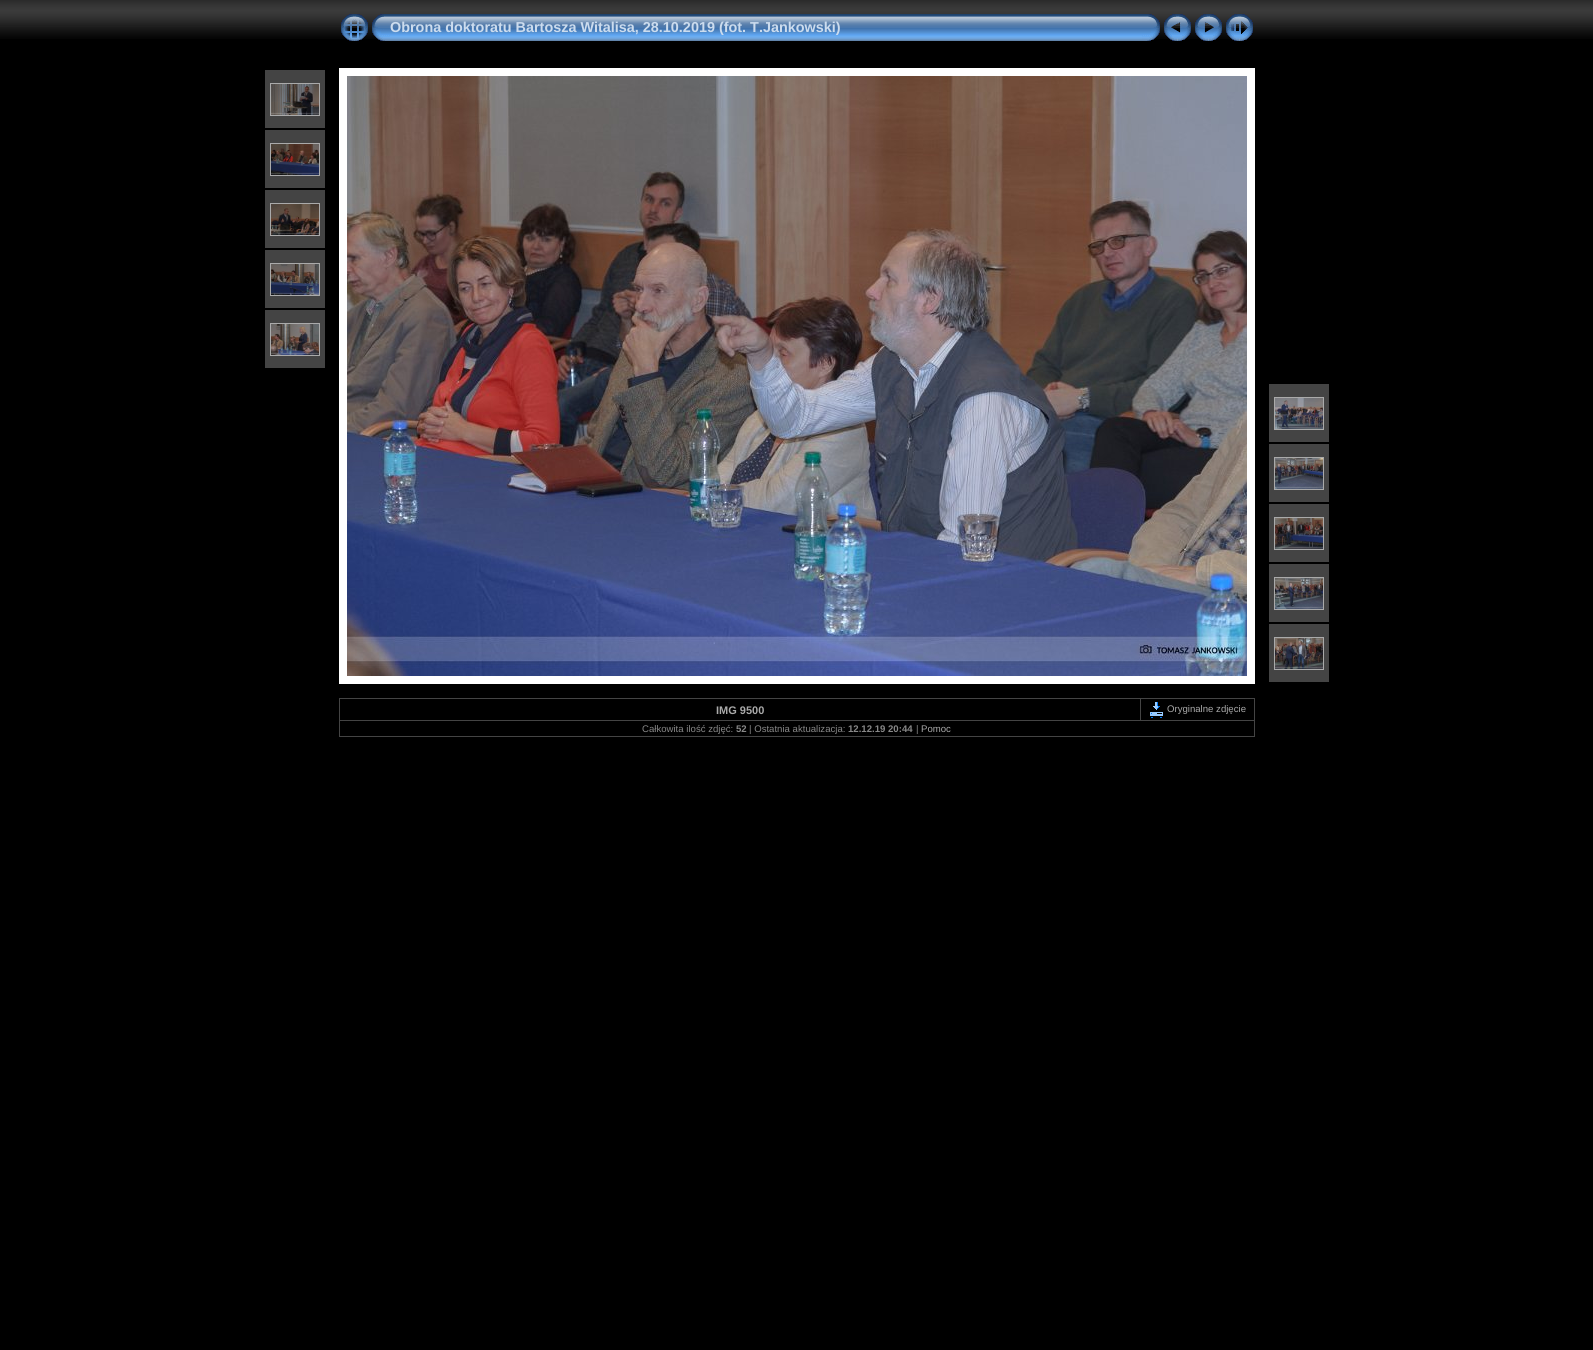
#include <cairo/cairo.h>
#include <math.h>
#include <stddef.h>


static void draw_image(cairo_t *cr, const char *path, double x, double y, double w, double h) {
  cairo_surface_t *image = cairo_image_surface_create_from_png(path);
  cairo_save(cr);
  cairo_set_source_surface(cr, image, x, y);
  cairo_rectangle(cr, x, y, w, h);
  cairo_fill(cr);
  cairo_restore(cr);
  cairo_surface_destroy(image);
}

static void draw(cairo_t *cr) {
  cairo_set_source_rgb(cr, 0, 0, 0);
  cairo_paint(cr);
  draw_image(cr, "images/1.png", 0, 0, 1593, 39);
  draw_image(cr, "images/2.png", 341, 14, 27, 27);
  draw_image(cr, "images/3.png", 372, 14, 18, 27);
  draw_image(cr, "images/4.png", 390, 14, 752, 27);
  draw_image(cr, "images/5.png", 1142, 14, 18, 27);
  draw_image(cr, "images/6.png", 1164, 14, 27, 27);
  draw_image(cr, "images/7.png", 1195, 14, 27, 27);
  draw_image(cr, "images/8.png", 1226, 14, 27, 27);
  cairo_set_source_rgb(cr, 68 / 255.0, 68 / 255.0, 68 / 255.0);
  cairo_rectangle(cr, 265, 70, 60, 58);
  cairo_fill(cr);
  cairo_rectangle(cr, 270.5, 83.5, 49, 32);
  cairo_set_source_rgb(cr, 170 / 255.0, 170 / 255.0, 170 / 255.0);
  cairo_set_line_width(cr, 1);
  cairo_stroke(cr);
  draw_image(cr, "images/9.png", 271, 84, 48, 31);
  cairo_set_source_rgb(cr, 68 / 255.0, 68 / 255.0, 68 / 255.0);
  cairo_rectangle(cr, 265, 130, 60, 58);
  cairo_fill(cr);
  cairo_rectangle(cr, 270.5, 143.5, 49, 32);
  cairo_set_source_rgb(cr, 170 / 255.0, 170 / 255.0, 170 / 255.0);
  cairo_stroke(cr);
  draw_image(cr, "images/10.png", 271, 144, 48, 31);
  cairo_set_source_rgb(cr, 68 / 255.0, 68 / 255.0, 68 / 255.0);
  cairo_rectangle(cr, 265, 190, 60, 58);
  cairo_fill(cr);
  cairo_rectangle(cr, 270.5, 203.5, 49, 32);
  cairo_set_source_rgb(cr, 170 / 255.0, 170 / 255.0, 170 / 255.0);
  cairo_stroke(cr);
  draw_image(cr, "images/11.png", 271, 204, 48, 31);
  cairo_set_source_rgb(cr, 68 / 255.0, 68 / 255.0, 68 / 255.0);
  cairo_rectangle(cr, 265, 250, 60, 58);
  cairo_fill(cr);
  cairo_rectangle(cr, 270.5, 263.5, 49, 32);
  cairo_set_source_rgb(cr, 170 / 255.0, 170 / 255.0, 170 / 255.0);
  cairo_stroke(cr);
  draw_image(cr, "images/12.png", 271, 264, 48, 31);
  cairo_set_source_rgb(cr, 68 / 255.0, 68 / 255.0, 68 / 255.0);
  cairo_rectangle(cr, 265, 310, 60, 58);
  cairo_fill(cr);
  cairo_rectangle(cr, 270.5, 323.5, 49, 32);
  cairo_set_source_rgb(cr, 170 / 255.0, 170 / 255.0, 170 / 255.0);
  cairo_stroke(cr);
  draw_image(cr, "images/13.png", 271, 324, 48, 31);
  cairo_rectangle(cr, 343, 72, 908, 608);
  cairo_set_source_rgb(cr, 1, 1, 1);
  cairo_set_line_width(cr, 8);
  cairo_stroke(cr);
  draw_image(cr, "images/14.png", 347, 76, 900, 600);
  cairo_set_source_rgb(cr, 68 / 255.0, 68 / 255.0, 68 / 255.0);
  cairo_rectangle(cr, 1269, 384, 60, 58);
  cairo_fill(cr);
  cairo_rectangle(cr, 1274.5, 397.5, 49, 32);
  cairo_set_source_rgb(cr, 170 / 255.0, 170 / 255.0, 170 / 255.0);
  cairo_set_line_width(cr, 1);
  cairo_stroke(cr);
  draw_image(cr, "images/15.png", 1275, 398, 48, 31);
  cairo_set_source_rgb(cr, 68 / 255.0, 68 / 255.0, 68 / 255.0);
  cairo_rectangle(cr, 1269, 444, 60, 58);
  cairo_fill(cr);
  cairo_rectangle(cr, 1274.5, 457.5, 49, 32);
  cairo_set_source_rgb(cr, 170 / 255.0, 170 / 255.0, 170 / 255.0);
  cairo_stroke(cr);
  draw_image(cr, "images/16.png", 1275, 458, 48, 31);
  cairo_set_source_rgb(cr, 68 / 255.0, 68 / 255.0, 68 / 255.0);
  cairo_rectangle(cr, 1269, 504, 60, 58);
  cairo_fill(cr);
  cairo_rectangle(cr, 1274.5, 517.5, 49, 32);
  cairo_set_source_rgb(cr, 170 / 255.0, 170 / 255.0, 170 / 255.0);
  cairo_stroke(cr);
  draw_image(cr, "images/17.png", 1275, 518, 48, 31);
  cairo_set_source_rgb(cr, 68 / 255.0, 68 / 255.0, 68 / 255.0);
  cairo_rectangle(cr, 1269, 564, 60, 58);
  cairo_fill(cr);
  cairo_rectangle(cr, 1274.5, 577.5, 49, 32);
  cairo_set_source_rgb(cr, 170 / 255.0, 170 / 255.0, 170 / 255.0);
  cairo_stroke(cr);
  draw_image(cr, "images/18.png", 1275, 578, 48, 31);
  cairo_set_source_rgb(cr, 68 / 255.0, 68 / 255.0, 68 / 255.0);
  cairo_rectangle(cr, 1269, 624, 60, 58);
  cairo_fill(cr);
  cairo_rectangle(cr, 1274.5, 637.5, 49, 32);
  cairo_set_source_rgb(cr, 170 / 255.0, 170 / 255.0, 170 / 255.0);
  cairo_stroke(cr);
  draw_image(cr, "images/19.png", 1275, 638, 48, 31);
  cairo_set_source_rgb(cr, 68 / 255.0, 68 / 255.0, 68 / 255.0);
  cairo_rectangle(cr, 339, 698, 916, 1);
  cairo_fill(cr);
  cairo_rectangle(cr, 1254, 698, 1, 39);
  cairo_fill(cr);
  cairo_rectangle(cr, 339, 736, 916, 1);
  cairo_fill(cr);
  cairo_rectangle(cr, 339, 698, 1, 39);
  cairo_fill(cr);
  cairo_rectangle(cr, 339, 720, 916, 1);
  cairo_fill(cr);
  cairo_rectangle(cr, 1140, 698, 1, 23);
  cairo_fill(cr);
  draw_image(cr, "images/20.png", 1150, 702, 13, 16);
  cairo_select_font_face(cr, "Liberation Sans", CAIRO_FONT_SLANT_NORMAL, CAIRO_FONT_WEIGHT_BOLD);
  cairo_set_font_size(cr, 14.4);
  cairo_set_source_rgb(cr, 204 / 255.0, 220 / 255.0, 238 / 255.0);
  cairo_move_to(cr, 390, 32);
  cairo_show_text(cr, "Obrona doktoratu Bartosza Witalisa, 28.10.2019 (fot. T.Jankowski)");
  cairo_set_font_size(cr, 11);
  cairo_set_source_rgb(cr, 170 / 255.0, 170 / 255.0, 170 / 255.0);
  cairo_move_to(cr, 716, 714);
  cairo_show_text(cr, "IMG 9500");
  cairo_select_font_face(cr, "Liberation Sans", CAIRO_FONT_SLANT_NORMAL, CAIRO_FONT_WEIGHT_NORMAL);
  cairo_set_font_size(cr, 9.6);
  cairo_move_to(cr, 1167, 712);
  cairo_show_text(cr, "Oryginalne zdjęcie");
  cairo_set_source_rgb(cr, 136 / 255.0, 136 / 255.0, 136 / 255.0);
  cairo_move_to(cr, 642, 732);
  cairo_show_text(cr, "Całkowita ilość zdjęć:");
  cairo_select_font_face(cr, "Liberation Sans", CAIRO_FONT_SLANT_NORMAL, CAIRO_FONT_WEIGHT_BOLD);
  cairo_move_to(cr, 736, 732);
  cairo_show_text(cr, "52");
  cairo_select_font_face(cr, "Liberation Sans", CAIRO_FONT_SLANT_NORMAL, CAIRO_FONT_WEIGHT_NORMAL);
  cairo_move_to(cr, 749, 732);
  cairo_show_text(cr, "| Ostatnia aktualizacja:");
  cairo_select_font_face(cr, "Liberation Sans", CAIRO_FONT_SLANT_NORMAL, CAIRO_FONT_WEIGHT_BOLD);
  cairo_move_to(cr, 848, 732);
  cairo_show_text(cr, "12.12.19 20:44");
  cairo_select_font_face(cr, "Liberation Sans", CAIRO_FONT_SLANT_NORMAL, CAIRO_FONT_WEIGHT_NORMAL);
  cairo_move_to(cr, 916, 732);
  cairo_show_text(cr, "|");
  cairo_set_source_rgb(cr, 170 / 255.0, 170 / 255.0, 170 / 255.0);
  cairo_move_to(cr, 921, 732);
  cairo_show_text(cr, "Pomoc");
}

int main(void) {
  cairo_surface_t *surface = cairo_image_surface_create(CAIRO_FORMAT_RGB24, 1593, 1350);
  cairo_t *cr = cairo_create(surface);
  cairo_font_options_t *options = cairo_font_options_create();
  cairo_font_options_set_hint_metrics(options, CAIRO_HINT_METRICS_OFF);
  cairo_font_options_set_hint_style(options, CAIRO_HINT_STYLE_NONE);
  cairo_set_font_options(cr, options);
  cairo_set_miter_limit(cr, 4);
  draw(cr);
  cairo_surface_write_to_png(surface, "out.png");
  cairo_font_options_destroy(options);
  cairo_destroy(cr);
  cairo_surface_destroy(surface);
  return 0;
}
